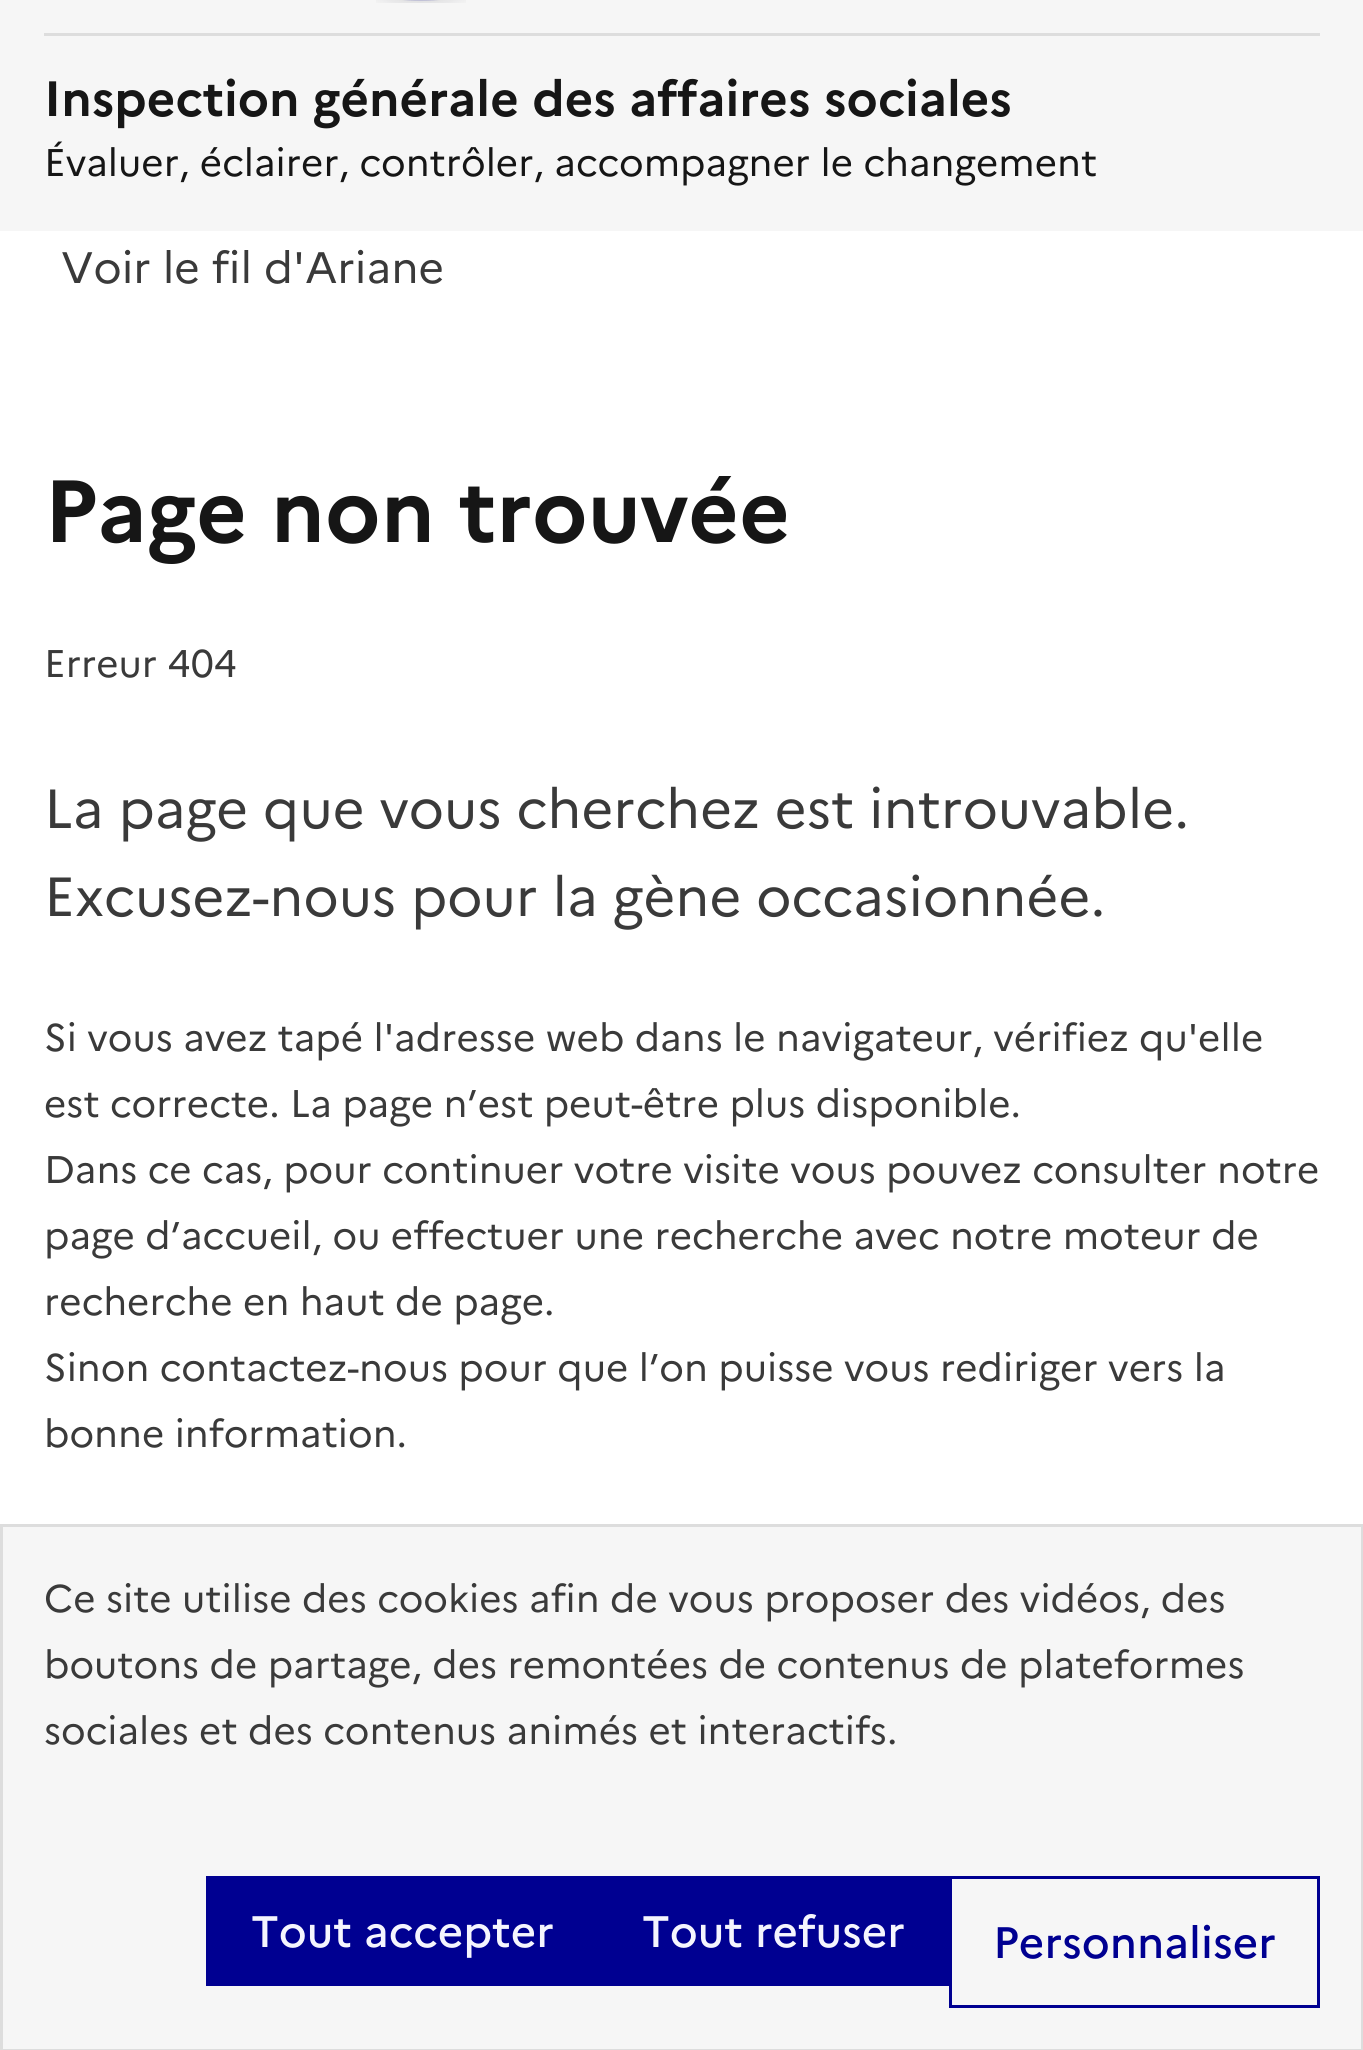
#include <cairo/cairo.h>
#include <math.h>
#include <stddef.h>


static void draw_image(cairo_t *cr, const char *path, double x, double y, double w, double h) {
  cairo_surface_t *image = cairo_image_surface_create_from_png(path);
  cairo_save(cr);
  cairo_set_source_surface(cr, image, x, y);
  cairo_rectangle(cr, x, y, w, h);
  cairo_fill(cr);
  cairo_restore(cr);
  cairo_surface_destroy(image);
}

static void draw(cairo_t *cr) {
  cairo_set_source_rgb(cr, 1, 1, 1);
  cairo_paint(cr);
  cairo_set_source_rgb(cr, 246 / 255.0, 246 / 255.0, 246 / 255.0);
  cairo_rectangle(cr, 0, 0, 1363, 231);
  cairo_fill(cr);
  draw_image(cr, "images/1.png", 376, 0, 90, 3);
  cairo_set_source_rgb(cr, 221 / 255.0, 221 / 255.0, 221 / 255.0);
  cairo_rectangle(cr, 44, 33, 1276, 3);
  cairo_fill(cr);
  cairo_set_source_rgb(cr, 246 / 255.0, 246 / 255.0, 246 / 255.0);
  cairo_rectangle(cr, 1.5, 1525.5, 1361, 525);
  cairo_fill_preserve(cr);
  cairo_set_source_rgb(cr, 221 / 255.0, 221 / 255.0, 221 / 255.0);
  cairo_set_line_width(cr, 3);
  cairo_stroke(cr);
  cairo_set_source_rgb(cr, 0, 0, 145 / 255.0);
  cairo_rectangle(cr, 206, 1876, 743, 110);
  cairo_fill(cr);
  cairo_rectangle(cr, 950.5, 1877.5, 368, 129);
  cairo_stroke(cr);
  cairo_select_font_face(cr, "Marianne", CAIRO_FONT_SLANT_NORMAL, CAIRO_FONT_WEIGHT_BOLD);
  cairo_set_font_size(cr, 49.5);
  cairo_set_source_rgb(cr, 22 / 255.0, 22 / 255.0, 22 / 255.0);
  cairo_move_to(cr, 44, 116);
  cairo_show_text(cr, "Inspection générale des affaires sociales");
  cairo_select_font_face(cr, "Marianne", CAIRO_FONT_SLANT_NORMAL, CAIRO_FONT_WEIGHT_NORMAL);
  cairo_set_font_size(cr, 38.5);
  cairo_move_to(cr, 44, 176);
  cairo_show_text(cr, "Évaluer, éclairer, contrôler, accompagner le changement");
  cairo_set_font_size(cr, 44);
  cairo_set_source_rgb(cr, 58 / 255.0, 58 / 255.0, 58 / 255.0);
  cairo_move_to(cr, 61, 283);
  cairo_show_text(cr, "Voir le fil d'Ariane");
  cairo_select_font_face(cr, "Marianne", CAIRO_FONT_SLANT_NORMAL, CAIRO_FONT_WEIGHT_BOLD);
  cairo_set_font_size(cr, 88);
  cairo_set_source_rgb(cr, 22 / 255.0, 22 / 255.0, 22 / 255.0);
  cairo_move_to(cr, 44, 542);
  cairo_show_text(cr, "Page non trouvée");
  cairo_select_font_face(cr, "Marianne", CAIRO_FONT_SLANT_NORMAL, CAIRO_FONT_WEIGHT_NORMAL);
  cairo_set_font_size(cr, 38.5);
  cairo_set_source_rgb(cr, 58 / 255.0, 58 / 255.0, 58 / 255.0);
  cairo_move_to(cr, 44, 677);
  cairo_show_text(cr, "Erreur 404");
  cairo_set_font_size(cr, 55);
  cairo_move_to(cr, 44, 828);
  cairo_show_text(cr, "La page que vous cherchez est introuvable.");
  cairo_move_to(cr, 44, 916);
  cairo_show_text(cr, "Excusez-nous pour la gène occasionnée.");
  cairo_set_font_size(cr, 38.5);
  cairo_move_to(cr, 44, 1051);
  cairo_show_text(cr, "Si vous avez tapé l'adresse web dans le navigateur, vérifiez qu'elle");
  cairo_move_to(cr, 44, 1117);
  cairo_show_text(cr, "est correcte. La page n’est peut-être plus disponible.");
  cairo_move_to(cr, 44, 1183);
  cairo_show_text(cr, "Dans ce cas, pour continuer votre visite vous pouvez consulter notre");
  cairo_move_to(cr, 44, 1249);
  cairo_show_text(cr, "page d’accueil, ou effectuer une recherche avec notre moteur de");
  cairo_move_to(cr, 44, 1315);
  cairo_show_text(cr, "recherche en haut de page.");
  cairo_move_to(cr, 44, 1381);
  cairo_show_text(cr, "Sinon contactez-nous pour que l’on puisse vous rediriger vers la");
  cairo_move_to(cr, 44, 1447);
  cairo_show_text(cr, "bonne information.");
  cairo_move_to(cr, 44, 1612);
  cairo_show_text(cr, "Ce site utilise des cookies afin de vous proposer des vidéos, des");
  cairo_move_to(cr, 44, 1678);
  cairo_show_text(cr, "boutons de partage, des remontées de contenus de plateformes");
  cairo_move_to(cr, 44, 1744);
  cairo_show_text(cr, "sociales et des contenus animés et interactifs.");
  cairo_select_font_face(cr, "Marianne Medium", CAIRO_FONT_SLANT_NORMAL, CAIRO_FONT_WEIGHT_NORMAL);
  cairo_set_font_size(cr, 44);
  cairo_set_source_rgb(cr, 245 / 255.0, 245 / 255.0, 254 / 255.0);
  cairo_move_to(cr, 251, 1947);
  cairo_show_text(cr, "Tout accepter");
  cairo_move_to(cr, 642, 1947);
  cairo_show_text(cr, "Tout refuser");
  cairo_set_source_rgb(cr, 0, 0, 145 / 255.0);
  cairo_move_to(cr, 993, 1958);
  cairo_show_text(cr, "Personnaliser");
}

int main(void) {
  cairo_surface_t *surface = cairo_image_surface_create(CAIRO_FORMAT_RGB24, 1363, 2050);
  cairo_t *cr = cairo_create(surface);
  cairo_font_options_t *options = cairo_font_options_create();
  cairo_font_options_set_hint_metrics(options, CAIRO_HINT_METRICS_OFF);
  cairo_font_options_set_hint_style(options, CAIRO_HINT_STYLE_NONE);
  cairo_set_font_options(cr, options);
  cairo_set_miter_limit(cr, 4);
  draw(cr);
  cairo_surface_write_to_png(surface, "out.png");
  cairo_font_options_destroy(options);
  cairo_destroy(cr);
  cairo_surface_destroy(surface);
  return 0;
}
